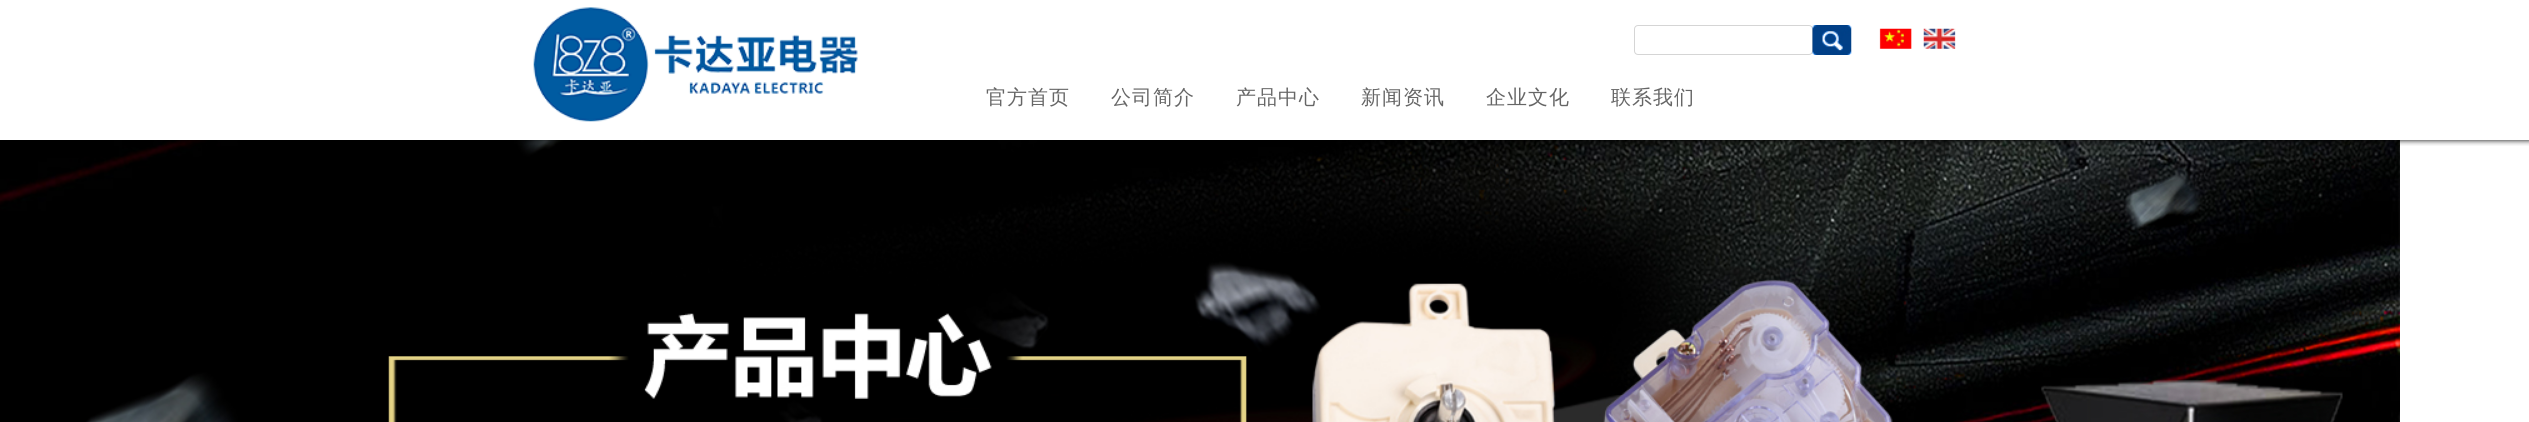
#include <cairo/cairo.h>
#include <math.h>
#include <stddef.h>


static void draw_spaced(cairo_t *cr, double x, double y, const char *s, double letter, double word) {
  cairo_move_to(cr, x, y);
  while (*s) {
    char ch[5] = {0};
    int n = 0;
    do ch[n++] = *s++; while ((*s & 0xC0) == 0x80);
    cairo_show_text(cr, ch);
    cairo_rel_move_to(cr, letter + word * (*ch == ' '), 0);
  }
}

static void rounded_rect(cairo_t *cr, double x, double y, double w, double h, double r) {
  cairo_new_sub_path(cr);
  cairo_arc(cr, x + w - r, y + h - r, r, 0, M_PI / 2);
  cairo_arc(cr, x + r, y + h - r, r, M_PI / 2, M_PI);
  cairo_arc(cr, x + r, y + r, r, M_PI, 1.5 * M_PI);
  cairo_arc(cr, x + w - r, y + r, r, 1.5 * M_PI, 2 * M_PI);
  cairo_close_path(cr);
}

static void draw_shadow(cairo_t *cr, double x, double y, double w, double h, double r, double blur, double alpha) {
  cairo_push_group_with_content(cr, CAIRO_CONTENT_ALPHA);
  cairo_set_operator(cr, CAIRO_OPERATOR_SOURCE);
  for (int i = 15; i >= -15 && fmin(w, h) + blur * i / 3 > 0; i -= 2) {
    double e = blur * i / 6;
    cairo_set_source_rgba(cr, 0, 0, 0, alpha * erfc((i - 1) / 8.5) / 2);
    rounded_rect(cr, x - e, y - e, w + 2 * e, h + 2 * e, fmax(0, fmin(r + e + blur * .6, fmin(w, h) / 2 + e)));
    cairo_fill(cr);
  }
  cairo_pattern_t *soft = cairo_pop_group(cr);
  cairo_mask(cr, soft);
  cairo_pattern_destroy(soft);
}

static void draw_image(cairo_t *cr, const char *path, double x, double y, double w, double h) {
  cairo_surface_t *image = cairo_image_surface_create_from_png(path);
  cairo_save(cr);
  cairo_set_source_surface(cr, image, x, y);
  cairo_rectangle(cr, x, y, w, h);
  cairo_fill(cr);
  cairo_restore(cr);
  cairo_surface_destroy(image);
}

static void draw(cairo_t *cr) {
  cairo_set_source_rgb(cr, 1, 1, 1);
  cairo_paint(cr);
  draw_image(cr, "images/5.png", 0, 140, 2400, 282);
  cairo_save(cr);
  cairo_rectangle(cr, 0, 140, 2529, 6);
  cairo_clip(cr);
  cairo_set_source_rgb(cr, 0, 0, 0);
  draw_shadow(cr, 0, 0, 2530, 140, 0, 3, 1);
  cairo_restore(cr);
  draw_image(cr, "images/1.png", 533, 7, 325, 115);
  rounded_rect(cr, 1634.5, 25.5, 178, 29, 3.5);
  cairo_set_source_rgb(cr, 213 / 255.0, 213 / 255.0, 213 / 255.0);
  cairo_set_line_width(cr, 1);
  cairo_stroke(cr);
  draw_image(cr, "images/2.png", 1812, 25, 40, 30);
  draw_image(cr, "images/3.png", 1879, 28, 33, 21);
  draw_image(cr, "images/4.png", 1923, 28, 33, 21);
  cairo_select_font_face(cr, "WenQuanYi Zen Hei Medium", CAIRO_FONT_SLANT_NORMAL, CAIRO_FONT_WEIGHT_NORMAL);
  cairo_set_font_size(cr, 20);
  cairo_set_source_rgb(cr, 102 / 255.0, 102 / 255.0, 102 / 255.0);
  draw_spaced(cr, 986, 104, "官方首页", 1, 0);
  draw_spaced(cr, 1111, 104, "公司简介", 1, 0);
  draw_spaced(cr, 1236, 104, "产品中心", 1, 0);
  draw_spaced(cr, 1361, 104, "新闻资讯", 1, 0);
  draw_spaced(cr, 1486, 104, "企业文化", 1, 0);
  draw_spaced(cr, 1611, 104, "联系我们", 1, 0);
}

int main(void) {
  cairo_surface_t *surface = cairo_image_surface_create(CAIRO_FORMAT_RGB24, 2529, 422);
  cairo_t *cr = cairo_create(surface);
  cairo_font_options_t *options = cairo_font_options_create();
  cairo_font_options_set_hint_metrics(options, CAIRO_HINT_METRICS_OFF);
  cairo_font_options_set_hint_style(options, CAIRO_HINT_STYLE_NONE);
  cairo_set_font_options(cr, options);
  cairo_set_miter_limit(cr, 4);
  draw(cr);
  cairo_surface_write_to_png(surface, "out.png");
  cairo_font_options_destroy(options);
  cairo_destroy(cr);
  cairo_surface_destroy(surface);
  return 0;
}
